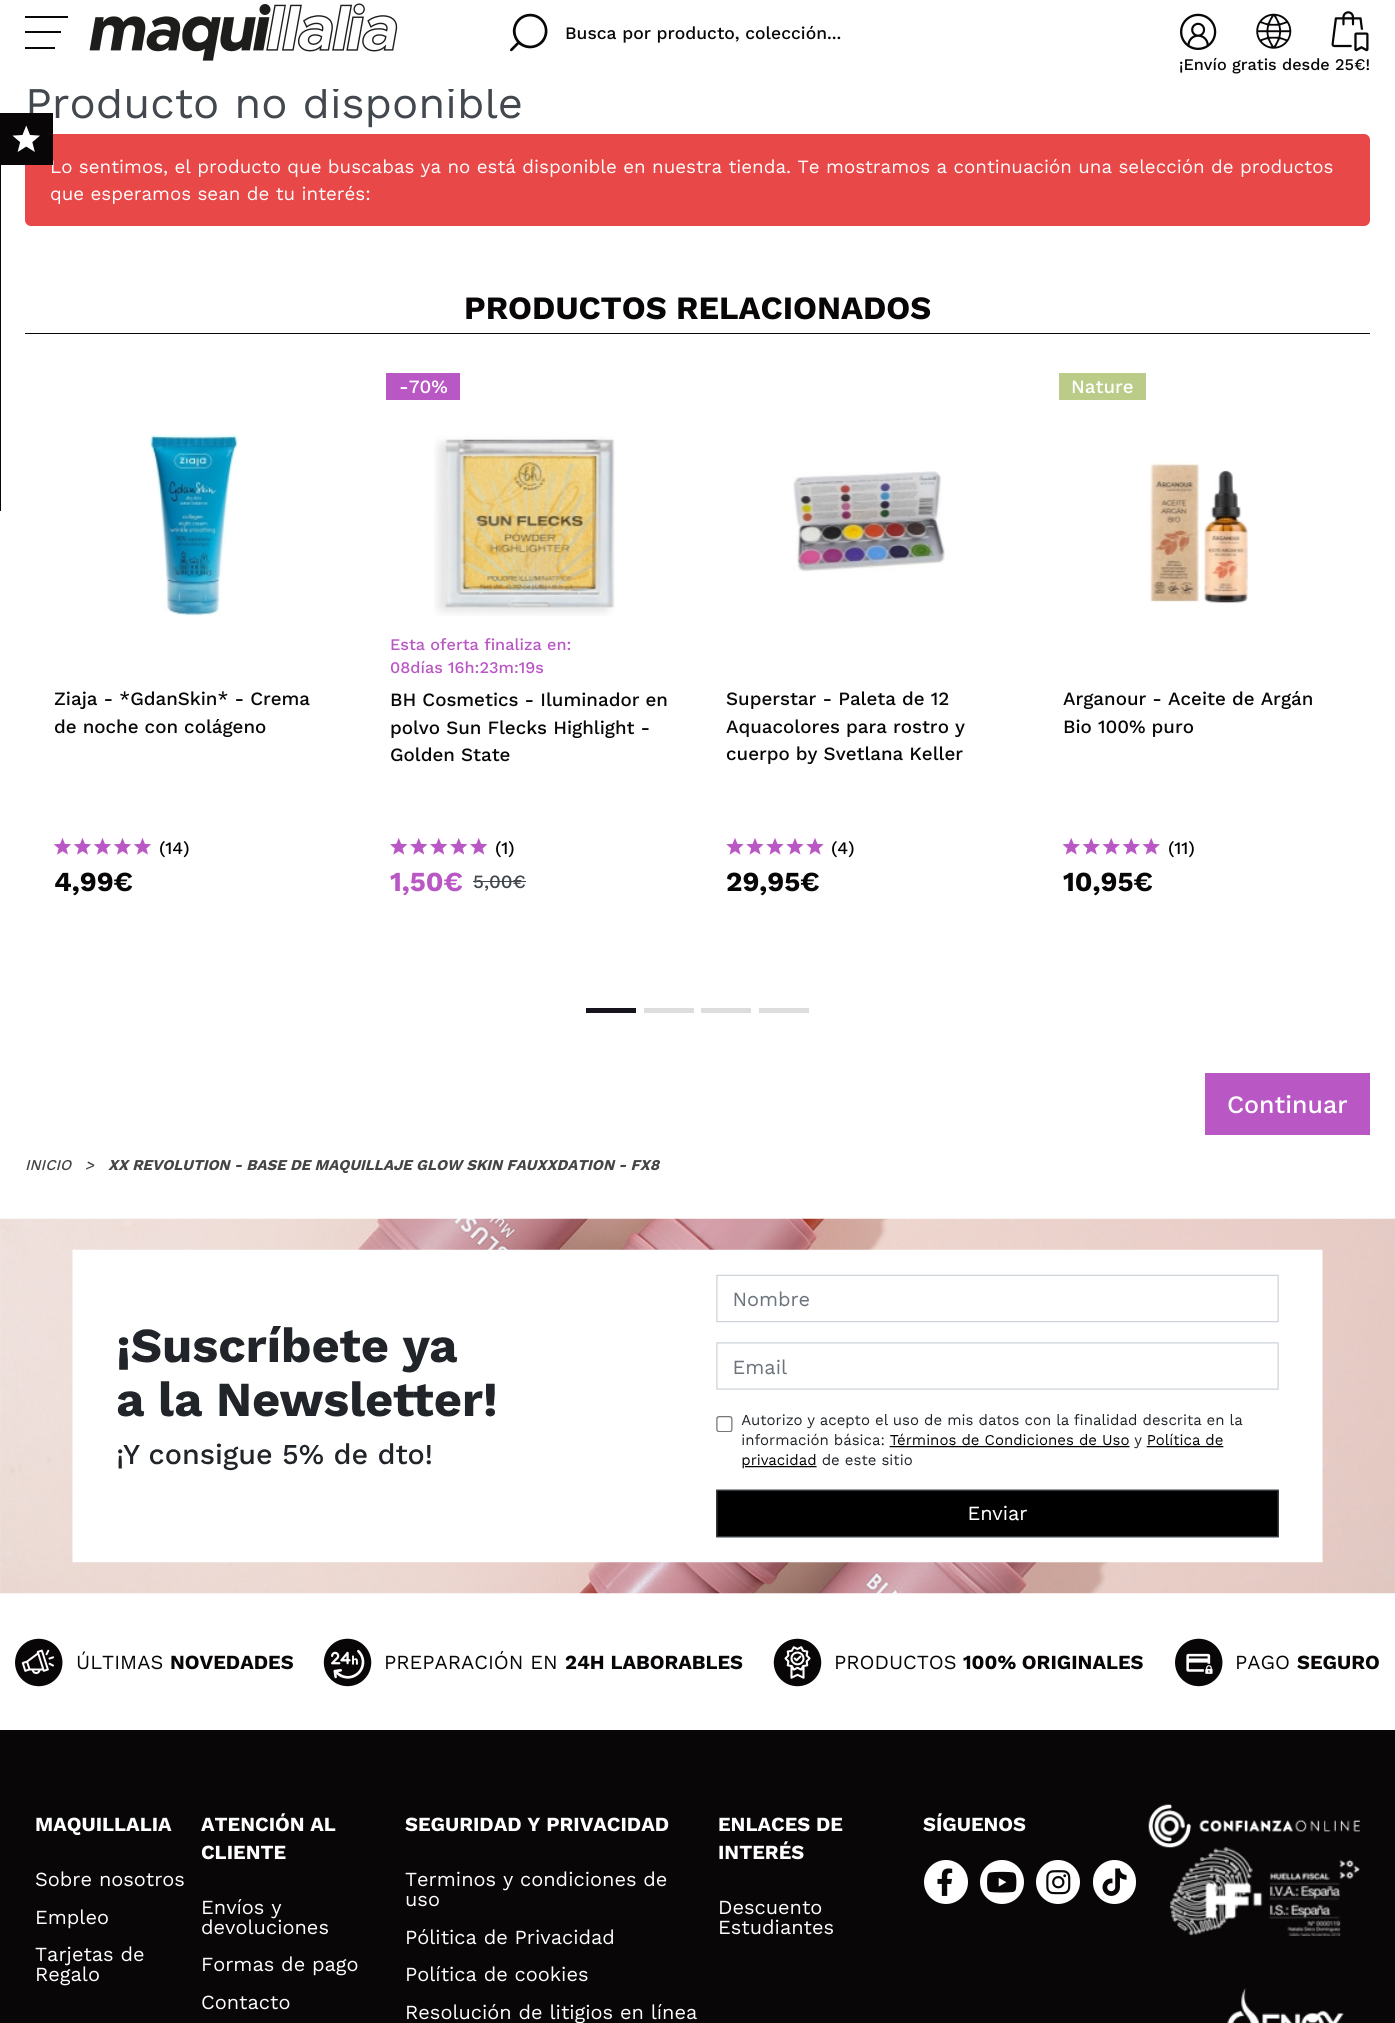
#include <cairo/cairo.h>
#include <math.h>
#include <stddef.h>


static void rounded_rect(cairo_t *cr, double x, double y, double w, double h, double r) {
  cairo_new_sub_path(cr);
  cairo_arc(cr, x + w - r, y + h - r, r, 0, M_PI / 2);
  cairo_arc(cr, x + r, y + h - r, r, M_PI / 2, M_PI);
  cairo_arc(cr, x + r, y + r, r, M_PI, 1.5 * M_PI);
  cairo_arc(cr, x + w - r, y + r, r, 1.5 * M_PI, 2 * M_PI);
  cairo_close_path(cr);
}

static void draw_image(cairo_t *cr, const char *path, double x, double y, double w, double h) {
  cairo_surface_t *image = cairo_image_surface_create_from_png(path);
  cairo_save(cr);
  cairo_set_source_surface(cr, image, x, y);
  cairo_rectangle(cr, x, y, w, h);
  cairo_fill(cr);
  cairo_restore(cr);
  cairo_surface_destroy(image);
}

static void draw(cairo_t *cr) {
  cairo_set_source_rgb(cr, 1, 1, 1);
  cairo_paint(cr);
  cairo_set_source_rgb(cr, 8 / 255.0, 6 / 255.0, 7 / 255.0);
  cairo_new_path(cr);
  cairo_move_to(cr, 25, 16);
  cairo_line_to(cr, 25, 18);
  cairo_line_to(cr, 68, 18);
  cairo_line_to(cr, 68, 16);
  cairo_close_path(cr);
  cairo_move_to(cr, 25, 31);
  cairo_line_to(cr, 25, 33);
  cairo_line_to(cr, 61, 33);
  cairo_line_to(cr, 61, 31);
  cairo_close_path(cr);
  cairo_move_to(cr, 25, 47);
  cairo_line_to(cr, 25, 49);
  cairo_line_to(cr, 55, 49);
  cairo_line_to(cr, 55, 47);
  cairo_close_path(cr);
  cairo_fill(cr);
  draw_image(cr, "images/1.png", 89, 3, 309, 58);
  draw_image(cr, "images/2.png", 510, 13, 38, 39);
  draw_image(cr, "images/3.png", 1180, 13, 37, 37);
  draw_image(cr, "images/4.png", 1256, 13, 36, 36);
  draw_image(cr, "images/5.png", 1331, 11, 38, 41);
  cairo_set_source_rgb(cr, 232 / 255.0, 72 / 255.0, 72 / 255.0);
  rounded_rect(cr, 25, 134, 1345, 92, 6);
  cairo_fill(cr);
  cairo_set_source_rgb(cr, 8 / 255.0, 6 / 255.0, 7 / 255.0);
  cairo_rectangle(cr, 25, 333, 1345, 1);
  cairo_fill(cr);
  draw_image(cr, "images/6.png", 150, 434, 88, 182);
  draw_image(cr, "images/7.png", 53, 838, 19, 17);
  draw_image(cr, "images/7.png", 73, 838, 19, 17);
  draw_image(cr, "images/7.png", 93, 838, 19, 17);
  draw_image(cr, "images/7.png", 113, 838, 19, 17);
  draw_image(cr, "images/7.png", 133, 838, 19, 17);
  cairo_set_source_rgb(cr, 185 / 255.0, 87 / 255.0, 197 / 255.0);
  cairo_rectangle(cr, 386, 373, 74, 27);
  cairo_fill(cr);
  draw_image(cr, "images/8.png", 434, 436, 181, 180);
  draw_image(cr, "images/9.png", 390, 838, 18, 17);
  draw_image(cr, "images/9.png", 410, 838, 18, 17);
  draw_image(cr, "images/9.png", 430, 838, 18, 17);
  draw_image(cr, "images/9.png", 450, 838, 18, 17);
  draw_image(cr, "images/9.png", 470, 838, 18, 17);
  cairo_set_source_rgb(cr, 66 / 255.0, 72 / 255.0, 78 / 255.0);
  cairo_rectangle(cr, 473, 881, 53, 1);
  cairo_fill(cr);
  draw_image(cr, "images/10.png", 793, 471, 152, 101);
  draw_image(cr, "images/11.png", 726, 838, 18, 17);
  draw_image(cr, "images/11.png", 746, 838, 18, 17);
  draw_image(cr, "images/11.png", 766, 838, 18, 17);
  draw_image(cr, "images/11.png", 786, 838, 18, 17);
  draw_image(cr, "images/11.png", 806, 838, 18, 17);
  cairo_set_source_rgb(cr, 186 / 255.0, 204 / 255.0, 136 / 255.0);
  cairo_rectangle(cr, 1059, 373, 87, 27);
  cairo_fill(cr);
  draw_image(cr, "images/12.png", 1149, 462, 100, 142);
  draw_image(cr, "images/13.png", 1062, 838, 18, 17);
  draw_image(cr, "images/13.png", 1082, 838, 18, 17);
  draw_image(cr, "images/13.png", 1102, 838, 18, 17);
  draw_image(cr, "images/13.png", 1122, 838, 18, 17);
  draw_image(cr, "images/13.png", 1142, 838, 18, 17);
  cairo_set_source_rgb(cr, 23 / 255.0, 20 / 255.0, 29 / 255.0);
  cairo_rectangle(cr, 586, 1008, 50, 5);
  cairo_fill(cr);
  cairo_set_source_rgb(cr, 221 / 255.0, 221 / 255.0, 221 / 255.0);
  cairo_rectangle(cr, 644, 1008, 50, 5);
  cairo_fill(cr);
  cairo_rectangle(cr, 701, 1008, 50, 5);
  cairo_fill(cr);
  cairo_rectangle(cr, 759, 1008, 50, 5);
  cairo_fill(cr);
  cairo_set_source_rgb(cr, 185 / 255.0, 87 / 255.0, 197 / 255.0);
  cairo_rectangle(cr, 1205, 1073, 165, 62);
  cairo_fill(cr);
  cairo_set_source_rgb(cr, 8 / 255.0, 6 / 255.0, 7 / 255.0);
  cairo_rectangle(cr, 0, 113, 1, 398);
  cairo_fill(cr);
  draw_image(cr, "images/15.png", 0, 1218, 1395, 376);
  draw_image(cr, "images/16.png", 15, 1638, 48, 49);
  draw_image(cr, "images/17.png", 323, 1638, 49, 49);
  draw_image(cr, "images/18.png", 773, 1638, 49, 49);
  draw_image(cr, "images/19.png", 1175, 1638, 48, 49);
  cairo_rectangle(cr, 0, 1730, 1395, 293);
  cairo_fill(cr);
  cairo_set_source_rgb(cr, 1, 1, 1);
  cairo_arc(cr, 946, 1882, 22, 0, 2 * M_PI);
  cairo_fill(cr);
  draw_image(cr, "images/20.png", 937, 1868, 16, 28);
  cairo_arc(cr, 1002, 1882, 22, 0, 2 * M_PI);
  cairo_fill(cr);
  draw_image(cr, "images/21.png", 987, 1871, 30, 22);
  cairo_arc(cr, 1058, 1882, 22, 0, 2 * M_PI);
  cairo_fill(cr);
  draw_image(cr, "images/22.png", 1046, 1870, 25, 25);
  rounded_rect(cr, 1093, 1860, 43, 44, 21.5);
  cairo_fill(cr);
  draw_image(cr, "images/23.png", 1102, 1868, 25, 28);
  draw_image(cr, "images/24.png", 1148, 1804, 212, 44);
  draw_image(cr, "images/25.png", 1170, 1847, 190, 89);
  draw_image(cr, "images/26.png", 1227, 1988, 117, 35);
  cairo_select_font_face(cr, "Work Sans Medium", CAIRO_FONT_SLANT_NORMAL, CAIRO_FONT_WEIGHT_NORMAL);
  cairo_set_font_size(cr, 17.5);
  cairo_set_source_rgb(cr, 8 / 255.0, 6 / 255.0, 7 / 255.0);
  cairo_move_to(cr, 565, 39);
  cairo_show_text(cr, "Busca por producto, colección...");
  cairo_set_font_size(cr, 16.25);
  cairo_move_to(cr, 1179, 70);
  cairo_show_text(cr, "¡Envío gratis desde 25€!");
  cairo_select_font_face(cr, "Work Sans", CAIRO_FONT_SLANT_NORMAL, CAIRO_FONT_WEIGHT_NORMAL);
  cairo_set_font_size(cr, 43.75);
  cairo_set_source_rgb(cr, 66 / 255.0, 72 / 255.0, 78 / 255.0);
  cairo_move_to(cr, 25, 118);
  cairo_show_text(cr, "Producto no disponible");
  cairo_set_source_rgb(cr, 1, 1, 1);
  cairo_rectangle(cr, 115, 86, 377, 3);
  cairo_fill(cr);
  cairo_set_font_size(cr, 18.75);
  cairo_move_to(cr, 50, 173);
  cairo_show_text(cr, "Lo sentimos, el producto que buscabas ya no está disponible en nuestra tienda. Te mostramos a continuación una selección de productos");
  cairo_move_to(cr, 50, 200);
  cairo_show_text(cr, "que esperamos sean de tu interés:");
  cairo_select_font_face(cr, "Work Sans", CAIRO_FONT_SLANT_NORMAL, CAIRO_FONT_WEIGHT_BOLD);
  cairo_set_font_size(cr, 32.5);
  cairo_set_source_rgb(cr, 8 / 255.0, 6 / 255.0, 7 / 255.0);
  cairo_move_to(cr, 464, 319);
  cairo_show_text(cr, "PRODUCTOS RELACIONADOS");
  cairo_select_font_face(cr, "Work Sans Medium", CAIRO_FONT_SLANT_NORMAL, CAIRO_FONT_WEIGHT_NORMAL);
  cairo_set_font_size(cr, 18.75);
  cairo_move_to(cr, 54, 705);
  cairo_show_text(cr, "Ziaja - *GdanSkin* - Crema");
  cairo_move_to(cr, 54, 733);
  cairo_show_text(cr, "de noche con colágeno");
  cairo_set_font_size(cr, 17.5);
  cairo_set_source_rgb(cr, 0, 0, 0);
  cairo_move_to(cr, 159, 854);
  cairo_show_text(cr, "(14)");
  cairo_select_font_face(cr, "Work Sans", CAIRO_FONT_SLANT_NORMAL, CAIRO_FONT_WEIGHT_BOLD);
  cairo_set_font_size(cr, 27.5);
  cairo_set_source_rgb(cr, 8 / 255.0, 6 / 255.0, 7 / 255.0);
  cairo_move_to(cr, 54, 891);
  cairo_show_text(cr, "4,99€");
  cairo_select_font_face(cr, "Work Sans Medium", CAIRO_FONT_SLANT_NORMAL, CAIRO_FONT_WEIGHT_NORMAL);
  cairo_set_font_size(cr, 18.75);
  cairo_set_source_rgb(cr, 1, 1, 1);
  cairo_move_to(cr, 399, 393);
  cairo_show_text(cr, "-70%");
  cairo_set_font_size(cr, 16.25);
  cairo_set_source_rgb(cr, 185 / 255.0, 87 / 255.0, 197 / 255.0);
  cairo_move_to(cr, 390, 650);
  cairo_show_text(cr, "Esta oferta finaliza en:");
  cairo_move_to(cr, 390, 673);
  cairo_show_text(cr, "08días 16h:23m:19s");
  cairo_set_font_size(cr, 18.75);
  cairo_set_source_rgb(cr, 8 / 255.0, 6 / 255.0, 7 / 255.0);
  cairo_move_to(cr, 390, 706);
  cairo_show_text(cr, "BH Cosmetics - Iluminador en");
  cairo_move_to(cr, 390, 734);
  cairo_show_text(cr, "polvo Sun Flecks Highlight -");
  cairo_move_to(cr, 390, 761);
  cairo_show_text(cr, "Golden State");
  cairo_set_font_size(cr, 17.5);
  cairo_set_source_rgb(cr, 0, 0, 0);
  cairo_move_to(cr, 495, 854);
  cairo_show_text(cr, "(1)");
  cairo_select_font_face(cr, "Work Sans", CAIRO_FONT_SLANT_NORMAL, CAIRO_FONT_WEIGHT_BOLD);
  cairo_set_font_size(cr, 27.5);
  cairo_set_source_rgb(cr, 185 / 255.0, 87 / 255.0, 197 / 255.0);
  cairo_move_to(cr, 390, 891);
  cairo_show_text(cr, "1,50€");
  cairo_select_font_face(cr, "Work Sans Medium", CAIRO_FONT_SLANT_NORMAL, CAIRO_FONT_WEIGHT_NORMAL);
  cairo_set_font_size(cr, 18.75);
  cairo_set_source_rgb(cr, 66 / 255.0, 72 / 255.0, 78 / 255.0);
  cairo_move_to(cr, 473, 888);
  cairo_show_text(cr, "5,00€");
  cairo_set_source_rgb(cr, 8 / 255.0, 6 / 255.0, 7 / 255.0);
  cairo_move_to(cr, 726, 705);
  cairo_show_text(cr, "Superstar - Paleta de 12");
  cairo_move_to(cr, 726, 733);
  cairo_show_text(cr, "Aquacolores para rostro y");
  cairo_move_to(cr, 726, 760);
  cairo_show_text(cr, "cuerpo by Svetlana Keller");
  cairo_set_font_size(cr, 17.5);
  cairo_set_source_rgb(cr, 0, 0, 0);
  cairo_move_to(cr, 831, 854);
  cairo_show_text(cr, "(4)");
  cairo_select_font_face(cr, "Work Sans", CAIRO_FONT_SLANT_NORMAL, CAIRO_FONT_WEIGHT_BOLD);
  cairo_set_font_size(cr, 27.5);
  cairo_set_source_rgb(cr, 8 / 255.0, 6 / 255.0, 7 / 255.0);
  cairo_move_to(cr, 726, 891);
  cairo_show_text(cr, "29,95€");
  cairo_select_font_face(cr, "Work Sans Medium", CAIRO_FONT_SLANT_NORMAL, CAIRO_FONT_WEIGHT_NORMAL);
  cairo_set_font_size(cr, 18.75);
  cairo_set_source_rgb(cr, 1, 1, 1);
  cairo_move_to(cr, 1071, 393);
  cairo_show_text(cr, "Nature");
  cairo_set_source_rgb(cr, 8 / 255.0, 6 / 255.0, 7 / 255.0);
  cairo_move_to(cr, 1063, 705);
  cairo_show_text(cr, "Arganour - Aceite de Argán");
  cairo_move_to(cr, 1063, 733);
  cairo_show_text(cr, "Bio 100% puro");
  cairo_set_font_size(cr, 17.5);
  cairo_set_source_rgb(cr, 0, 0, 0);
  cairo_move_to(cr, 1168, 854);
  cairo_show_text(cr, "(11)");
  cairo_select_font_face(cr, "Work Sans", CAIRO_FONT_SLANT_NORMAL, CAIRO_FONT_WEIGHT_BOLD);
  cairo_set_font_size(cr, 27.5);
  cairo_set_source_rgb(cr, 8 / 255.0, 6 / 255.0, 7 / 255.0);
  cairo_move_to(cr, 1063, 891);
  cairo_show_text(cr, "10,95€");
  cairo_select_font_face(cr, "Work Sans Medium", CAIRO_FONT_SLANT_NORMAL, CAIRO_FONT_WEIGHT_NORMAL);
  cairo_set_font_size(cr, 25);
  cairo_set_source_rgb(cr, 1, 1, 1);
  cairo_move_to(cr, 1227, 1113);
  cairo_show_text(cr, "Continuar");
  cairo_select_font_face(cr, "Work Sans Medium", CAIRO_FONT_SLANT_ITALIC, CAIRO_FONT_WEIGHT_NORMAL);
  cairo_set_font_size(cr, 15);
  cairo_set_source_rgb(cr, 70 / 255.0, 68 / 255.0, 69 / 255.0);
  cairo_move_to(cr, 25, 1170);
  cairo_show_text(cr, "INICIO");
  cairo_move_to(cr, 85, 1170);
  cairo_show_text(cr, ">");
  cairo_select_font_face(cr, "Work Sans", CAIRO_FONT_SLANT_ITALIC, CAIRO_FONT_WEIGHT_BOLD);
  cairo_move_to(cr, 108, 1170);
  cairo_show_text(cr, "XX REVOLUTION - BASE DE MAQUILLAJE GLOW SKIN FAUXXDATION - FX8");
  cairo_set_source_rgb(cr, 8 / 255.0, 6 / 255.0, 7 / 255.0);
  cairo_rectangle(cr, 1, 113, 52, 52);
  cairo_fill(cr);
  draw_image(cr, "images/14.png", 12, 125, 28, 27);
  cairo_select_font_face(cr, "Work Sans", CAIRO_FONT_SLANT_NORMAL, CAIRO_FONT_WEIGHT_NORMAL);
  cairo_set_font_size(cr, 20);
  cairo_move_to(cr, 76, 1669);
  cairo_show_text(cr, "ÚLTIMAS");
  cairo_select_font_face(cr, "Work Sans", CAIRO_FONT_SLANT_NORMAL, CAIRO_FONT_WEIGHT_BOLD);
  cairo_move_to(cr, 170, 1669);
  cairo_show_text(cr, "NOVEDADES");
  cairo_select_font_face(cr, "Work Sans", CAIRO_FONT_SLANT_NORMAL, CAIRO_FONT_WEIGHT_NORMAL);
  cairo_move_to(cr, 384, 1669);
  cairo_show_text(cr, "PREPARACIÓN EN");
  cairo_select_font_face(cr, "Work Sans", CAIRO_FONT_SLANT_NORMAL, CAIRO_FONT_WEIGHT_BOLD);
  cairo_move_to(cr, 565, 1669);
  cairo_show_text(cr, "24H LABORABLES");
  cairo_select_font_face(cr, "Work Sans", CAIRO_FONT_SLANT_NORMAL, CAIRO_FONT_WEIGHT_NORMAL);
  cairo_move_to(cr, 834, 1669);
  cairo_show_text(cr, "PRODUCTOS");
  cairo_select_font_face(cr, "Work Sans", CAIRO_FONT_SLANT_NORMAL, CAIRO_FONT_WEIGHT_BOLD);
  cairo_move_to(cr, 963, 1669);
  cairo_show_text(cr, "100% ORIGINALES");
  cairo_select_font_face(cr, "Work Sans", CAIRO_FONT_SLANT_NORMAL, CAIRO_FONT_WEIGHT_NORMAL);
  cairo_move_to(cr, 1235, 1669);
  cairo_show_text(cr, "PAGO");
  cairo_select_font_face(cr, "Work Sans", CAIRO_FONT_SLANT_NORMAL, CAIRO_FONT_WEIGHT_BOLD);
  cairo_move_to(cr, 1297, 1669);
  cairo_show_text(cr, "SEGURO");
  cairo_set_source_rgb(cr, 1, 1, 1);
  cairo_move_to(cr, 35, 1831);
  cairo_show_text(cr, "MAQUILLALIA");
  cairo_select_font_face(cr, "Work Sans", CAIRO_FONT_SLANT_NORMAL, CAIRO_FONT_WEIGHT_NORMAL);
  cairo_move_to(cr, 35, 1886);
  cairo_show_text(cr, "Sobre nosotros");
  cairo_move_to(cr, 35, 1924);
  cairo_show_text(cr, "Empleo");
  cairo_move_to(cr, 35, 1961);
  cairo_show_text(cr, "Tarjetas de");
  cairo_move_to(cr, 35, 1981);
  cairo_show_text(cr, "Regalo");
  cairo_select_font_face(cr, "Work Sans", CAIRO_FONT_SLANT_NORMAL, CAIRO_FONT_WEIGHT_BOLD);
  cairo_move_to(cr, 201, 1831);
  cairo_show_text(cr, "ATENCIÓN AL");
  cairo_move_to(cr, 201, 1859);
  cairo_show_text(cr, "CLIENTE");
  cairo_select_font_face(cr, "Work Sans", CAIRO_FONT_SLANT_NORMAL, CAIRO_FONT_WEIGHT_NORMAL);
  cairo_move_to(cr, 201, 1914);
  cairo_show_text(cr, "Envíos y");
  cairo_move_to(cr, 201, 1934);
  cairo_show_text(cr, "devoluciones");
  cairo_move_to(cr, 201, 1971);
  cairo_show_text(cr, "Formas de pago");
  cairo_move_to(cr, 201, 2009);
  cairo_show_text(cr, "Contacto");
  cairo_select_font_face(cr, "Work Sans", CAIRO_FONT_SLANT_NORMAL, CAIRO_FONT_WEIGHT_BOLD);
  cairo_move_to(cr, 405, 1831);
  cairo_show_text(cr, "SEGURIDAD Y PRIVACIDAD");
  cairo_select_font_face(cr, "Work Sans", CAIRO_FONT_SLANT_NORMAL, CAIRO_FONT_WEIGHT_NORMAL);
  cairo_move_to(cr, 405, 1886);
  cairo_show_text(cr, "Terminos y condiciones de");
  cairo_move_to(cr, 405, 1906);
  cairo_show_text(cr, "uso");
  cairo_move_to(cr, 405, 1944);
  cairo_show_text(cr, "Pólitica de Privacidad");
  cairo_move_to(cr, 405, 1981);
  cairo_show_text(cr, "Política de cookies");
  cairo_move_to(cr, 405, 2019);
  cairo_show_text(cr, "Resolución de litigios en línea");
  cairo_select_font_face(cr, "Work Sans", CAIRO_FONT_SLANT_NORMAL, CAIRO_FONT_WEIGHT_BOLD);
  cairo_move_to(cr, 718, 1831);
  cairo_show_text(cr, "ENLACES DE");
  cairo_move_to(cr, 718, 1859);
  cairo_show_text(cr, "INTERÉS");
  cairo_select_font_face(cr, "Work Sans", CAIRO_FONT_SLANT_NORMAL, CAIRO_FONT_WEIGHT_NORMAL);
  cairo_move_to(cr, 718, 1914);
  cairo_show_text(cr, "Descuento");
  cairo_move_to(cr, 718, 1934);
  cairo_show_text(cr, "Estudiantes");
  cairo_select_font_face(cr, "Work Sans", CAIRO_FONT_SLANT_NORMAL, CAIRO_FONT_WEIGHT_BOLD);
  cairo_move_to(cr, 923, 1831);
  cairo_show_text(cr, "SÍGUENOS");
}

int main(void) {
  cairo_surface_t *surface = cairo_image_surface_create(CAIRO_FORMAT_RGB24, 1395, 2023);
  cairo_t *cr = cairo_create(surface);
  cairo_font_options_t *options = cairo_font_options_create();
  cairo_font_options_set_hint_metrics(options, CAIRO_HINT_METRICS_OFF);
  cairo_font_options_set_hint_style(options, CAIRO_HINT_STYLE_NONE);
  cairo_set_font_options(cr, options);
  cairo_set_miter_limit(cr, 4);
  draw(cr);
  cairo_surface_write_to_png(surface, "out.png");
  cairo_font_options_destroy(options);
  cairo_destroy(cr);
  cairo_surface_destroy(surface);
  return 0;
}
